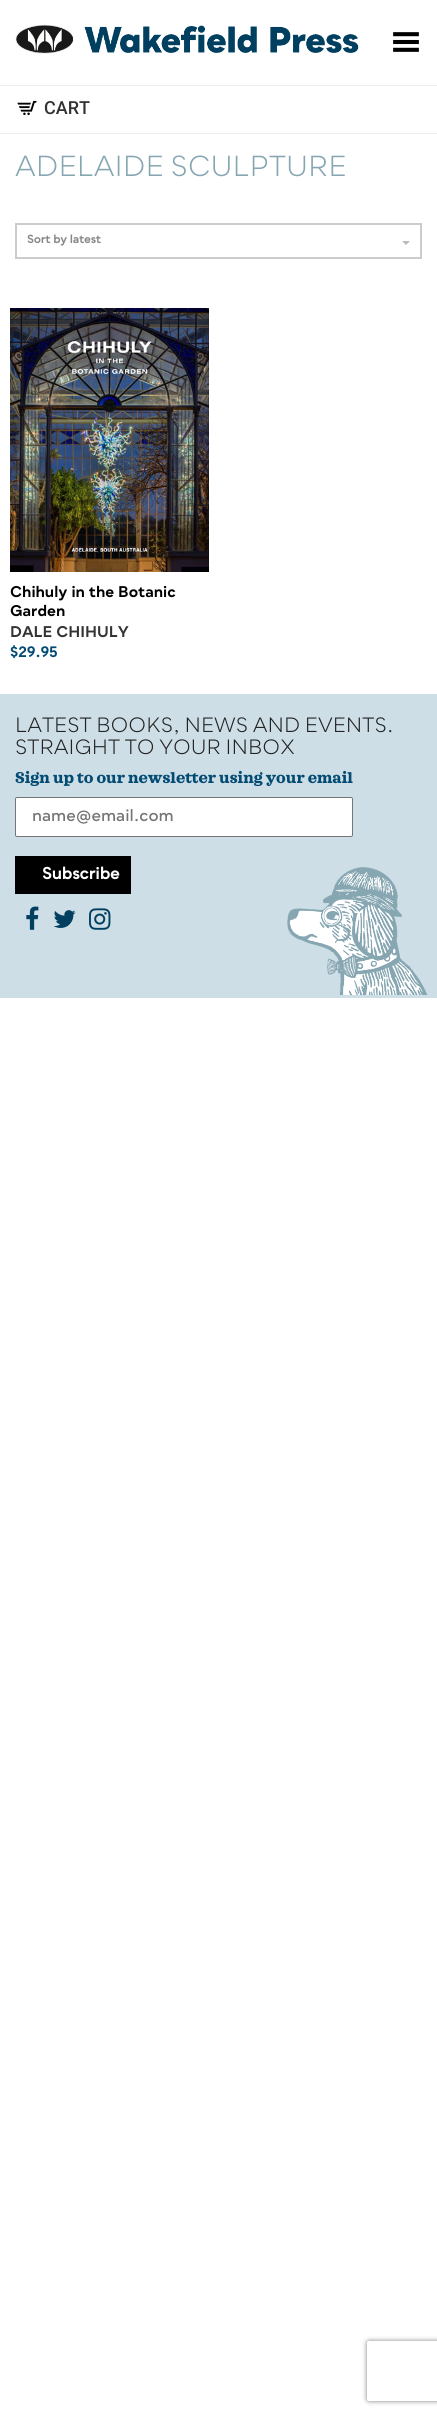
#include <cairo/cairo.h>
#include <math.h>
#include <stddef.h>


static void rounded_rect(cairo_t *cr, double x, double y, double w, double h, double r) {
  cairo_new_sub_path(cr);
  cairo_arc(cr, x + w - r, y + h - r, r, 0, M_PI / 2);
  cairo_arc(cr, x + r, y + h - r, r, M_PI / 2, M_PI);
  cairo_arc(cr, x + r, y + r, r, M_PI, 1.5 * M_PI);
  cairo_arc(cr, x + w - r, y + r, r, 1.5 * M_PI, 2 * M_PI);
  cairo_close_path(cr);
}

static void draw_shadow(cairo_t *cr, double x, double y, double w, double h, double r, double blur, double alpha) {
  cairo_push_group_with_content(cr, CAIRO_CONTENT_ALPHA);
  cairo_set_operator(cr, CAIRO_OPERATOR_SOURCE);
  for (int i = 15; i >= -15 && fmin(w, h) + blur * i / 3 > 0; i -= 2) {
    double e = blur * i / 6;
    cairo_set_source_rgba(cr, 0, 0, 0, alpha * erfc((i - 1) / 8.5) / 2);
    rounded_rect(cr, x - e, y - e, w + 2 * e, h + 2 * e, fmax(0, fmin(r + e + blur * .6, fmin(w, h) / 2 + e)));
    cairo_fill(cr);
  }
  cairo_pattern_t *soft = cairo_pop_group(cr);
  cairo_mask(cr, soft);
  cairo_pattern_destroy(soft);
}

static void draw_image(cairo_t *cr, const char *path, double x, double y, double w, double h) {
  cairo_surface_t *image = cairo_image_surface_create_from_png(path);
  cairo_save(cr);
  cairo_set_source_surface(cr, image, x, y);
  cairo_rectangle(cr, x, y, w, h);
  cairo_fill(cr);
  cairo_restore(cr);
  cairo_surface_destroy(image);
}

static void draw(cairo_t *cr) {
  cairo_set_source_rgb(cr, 1, 1, 1);
  cairo_paint(cr);
  cairo_set_source_rgb(cr, 238 / 255.0, 238 / 255.0, 238 / 255.0);
  cairo_rectangle(cr, 0, 85, 437, 1);
  cairo_fill(cr);
  draw_image(cr, "images/1.png", 15, 24, 344, 30);
  draw_image(cr, "images/2.png", 393, 32, 26, 20);
  cairo_rectangle(cr, 0, 133, 437, 1);
  cairo_fill(cr);
  draw_image(cr, "images/3.png", 17, 100, 20, 16);
  cairo_rectangle(cr, 16, 224, 405, 34);
  cairo_set_source_rgb(cr, 204 / 255.0, 204 / 255.0, 204 / 255.0);
  cairo_stroke(cr);
  cairo_set_source_rgb(cr, 187 / 255.0, 187 / 255.0, 187 / 255.0);
  cairo_new_path(cr);
  cairo_move_to(cr, 402, 241);
  cairo_line_to(cr, 410, 241);
  cairo_line_to(cr, 406, 245);
  cairo_close_path(cr);
  cairo_fill(cr);
  draw_image(cr, "images/4.png", 10, 308, 199, 264);
  cairo_set_source_rgb(cr, 205 / 255.0, 222 / 255.0, 230 / 255.0);
  cairo_rectangle(cr, 0, 694, 437, 304);
  cairo_fill(cr);
  cairo_set_source_rgb(cr, 1, 1, 1);
  rounded_rect(cr, 15.5, 797.5, 337, 39, 1.5);
  cairo_fill_preserve(cr);
  cairo_set_source_rgb(cr, 118 / 255.0, 118 / 255.0, 118 / 255.0);
  cairo_set_line_width(cr, 1);
  cairo_stroke(cr);
  cairo_set_source_rgb(cr, 0, 0, 0);
  cairo_rectangle(cr, 15, 856, 116, 38);
  cairo_fill(cr);
  draw_image(cr, "images/5.png", 26, 906, 13, 24);
  draw_image(cr, "images/6.png", 53, 910, 23, 18);
  draw_image(cr, "images/7.png", 89, 908, 22, 22);
  draw_image(cr, "images/8.png", 287, 867, 141, 128);
  cairo_save(cr);
  cairo_set_fill_rule(cr, CAIRO_FILL_RULE_EVEN_ODD);
  cairo_new_path(cr);
  cairo_move_to(cr, 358, 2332);
  cairo_line_to(cr, 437, 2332);
  cairo_line_to(cr, 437, 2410);
  cairo_line_to(cr, 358, 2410);
  cairo_close_path(cr);
  cairo_move_to(cr, 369, 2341);
  cairo_line_to(cr, 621, 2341);
  cairo_curve_to(cr, 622, 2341, 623, 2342, 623, 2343);
  cairo_line_to(cr, 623, 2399);
  cairo_curve_to(cr, 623, 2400, 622, 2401, 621, 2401);
  cairo_line_to(cr, 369, 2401);
  cairo_curve_to(cr, 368, 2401, 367, 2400, 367, 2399);
  cairo_line_to(cr, 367, 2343);
  cairo_curve_to(cr, 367, 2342, 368, 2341, 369, 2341);
  cairo_close_path(cr);
  cairo_clip(cr);
  cairo_set_source_rgb(cr, 128 / 255.0, 128 / 255.0, 128 / 255.0);
  draw_shadow(cr, 367, 2341, 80, 60, 2, 2.5, 1);
  cairo_restore(cr);
  cairo_select_font_face(cr, "Roboto Medium", CAIRO_FONT_SLANT_NORMAL, CAIRO_FONT_WEIGHT_NORMAL);
  cairo_set_font_size(cr, 18);
  cairo_set_source_rgb(cr, 51 / 255.0, 51 / 255.0, 51 / 255.0);
  cairo_move_to(cr, 44, 114);
  cairo_show_text(cr, "CART");
  cairo_select_font_face(cr, "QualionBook", CAIRO_FONT_SLANT_NORMAL, CAIRO_FONT_WEIGHT_NORMAL);
  cairo_set_font_size(cr, 28);
  cairo_set_source_rgb(cr, 134 / 255.0, 166 / 255.0, 177 / 255.0);
  cairo_move_to(cr, 15, 176);
  cairo_show_text(cr, "ADELAIDE SCULPTURE");
  cairo_select_font_face(cr, "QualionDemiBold", CAIRO_FONT_SLANT_NORMAL, CAIRO_FONT_WEIGHT_BOLD);
  cairo_set_font_size(cr, 11);
  cairo_set_source_rgb(cr, 136 / 255.0, 136 / 255.0, 136 / 255.0);
  cairo_move_to(cr, 27, 243);
  cairo_show_text(cr, "Sort by latest");
  cairo_select_font_face(cr, "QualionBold", CAIRO_FONT_SLANT_NORMAL, CAIRO_FONT_WEIGHT_NORMAL);
  cairo_set_font_size(cr, 15);
  cairo_set_source_rgb(cr, 0, 0, 0);
  cairo_move_to(cr, 10, 597);
  cairo_show_text(cr, "Chihuly in the Botanic");
  cairo_move_to(cr, 10, 616);
  cairo_show_text(cr, "Garden");
  cairo_set_source_rgb(cr, 51 / 255.0, 51 / 255.0, 51 / 255.0);
  cairo_move_to(cr, 10, 637);
  cairo_show_text(cr, "DALE CHIHULY");
  cairo_set_source_rgb(cr, 4 / 255.0, 75 / 255.0, 116 / 255.0);
  cairo_move_to(cr, 10, 657);
  cairo_show_text(cr, "$29.95");
  cairo_select_font_face(cr, "QualionBook", CAIRO_FONT_SLANT_NORMAL, CAIRO_FONT_WEIGHT_NORMAL);
  cairo_set_font_size(cr, 20);
  cairo_set_source_rgb(cr, 34 / 255.0, 34 / 255.0, 34 / 255.0);
  cairo_move_to(cr, 15, 732);
  cairo_show_text(cr, "LATEST BOOKS, NEWS AND EVENTS.");
  cairo_move_to(cr, 15, 754);
  cairo_show_text(cr, "STRAIGHT TO YOUR INBOX");
  cairo_select_font_face(cr, "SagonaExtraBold", CAIRO_FONT_SLANT_NORMAL, CAIRO_FONT_WEIGHT_NORMAL);
  cairo_set_font_size(cr, 16);
  cairo_set_source_rgb(cr, 4 / 255.0, 75 / 255.0, 116 / 255.0);
  cairo_move_to(cr, 15, 783);
  cairo_show_text(cr, "Sign up to our newsletter using your email");
  cairo_select_font_face(cr, "QualionDemiBold", CAIRO_FONT_SLANT_NORMAL, CAIRO_FONT_WEIGHT_NORMAL);
  cairo_set_source_rgb(cr, 117 / 255.0, 117 / 255.0, 117 / 255.0);
  cairo_move_to(cr, 32, 821);
  cairo_show_text(cr, "name@email.com");
  cairo_select_font_face(cr, "QualionDemiBold", CAIRO_FONT_SLANT_NORMAL, CAIRO_FONT_WEIGHT_BOLD);
  cairo_set_source_rgb(cr, 1, 1, 1);
  cairo_move_to(cr, 42, 879);
  cairo_show_text(cr, "Subscribe");
}

int main(void) {
  cairo_surface_t *surface = cairo_image_surface_create(CAIRO_FORMAT_RGB24, 437, 2415);
  cairo_t *cr = cairo_create(surface);
  cairo_font_options_t *options = cairo_font_options_create();
  cairo_font_options_set_hint_metrics(options, CAIRO_HINT_METRICS_OFF);
  cairo_font_options_set_hint_style(options, CAIRO_HINT_STYLE_NONE);
  cairo_set_font_options(cr, options);
  cairo_set_miter_limit(cr, 4);
  draw(cr);
  cairo_surface_write_to_png(surface, "out.png");
  cairo_font_options_destroy(options);
  cairo_destroy(cr);
  cairo_surface_destroy(surface);
  return 0;
}
